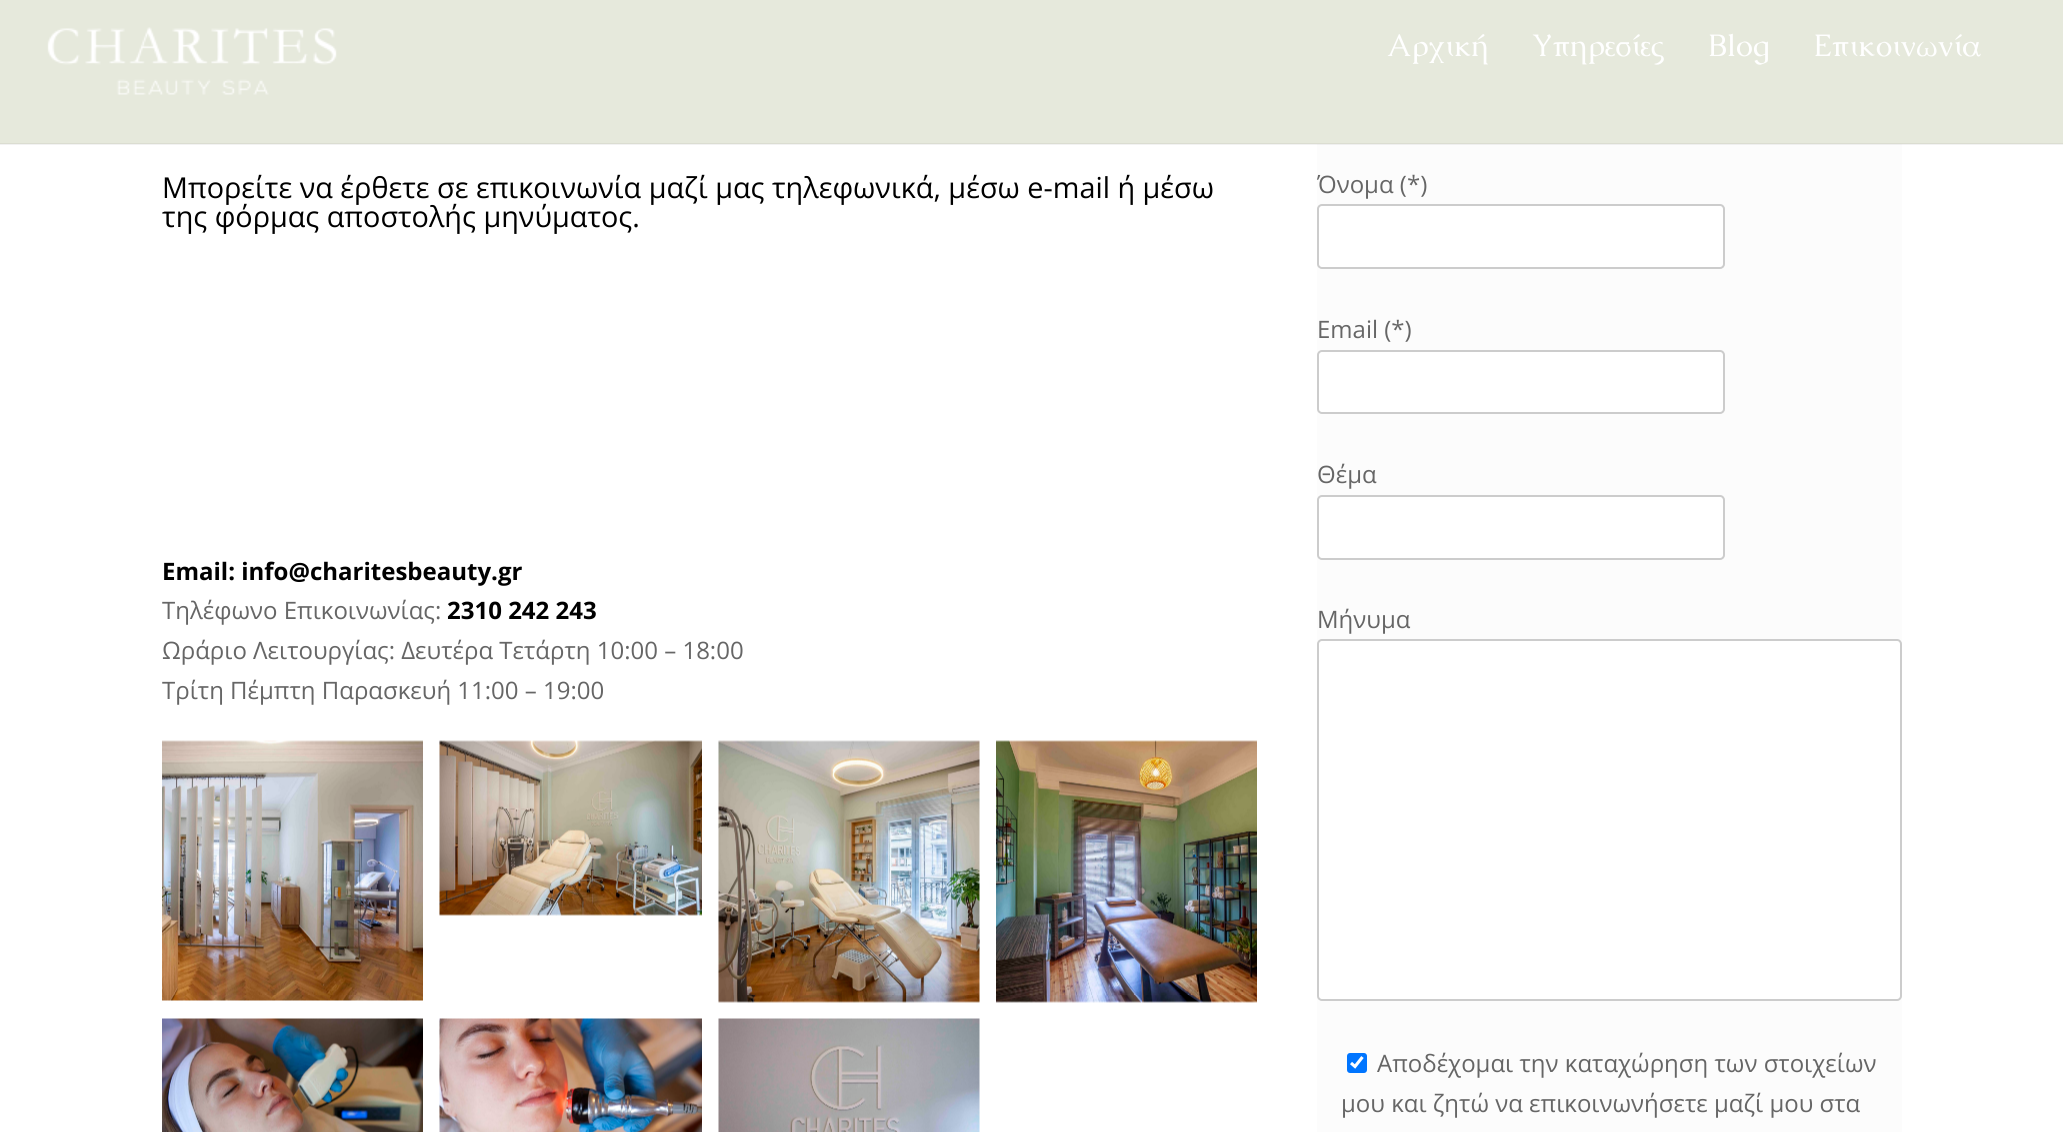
#include <cairo/cairo.h>
#include <math.h>
#include <stddef.h>


static void rounded_rect(cairo_t *cr, double x, double y, double w, double h, double r) {
  cairo_new_sub_path(cr);
  cairo_arc(cr, x + w - r, y + h - r, r, 0, M_PI / 2);
  cairo_arc(cr, x + r, y + h - r, r, M_PI / 2, M_PI);
  cairo_arc(cr, x + r, y + r, r, M_PI, 1.5 * M_PI);
  cairo_arc(cr, x + w - r, y + r, r, 1.5 * M_PI, 2 * M_PI);
  cairo_close_path(cr);
}

static void draw_image(cairo_t *cr, const char *path, double x, double y, double w, double h) {
  cairo_surface_t *image = cairo_image_surface_create_from_png(path);
  cairo_save(cr);
  cairo_set_source_surface(cr, image, x, y);
  cairo_rectangle(cr, x, y, w, h);
  cairo_fill(cr);
  cairo_restore(cr);
  cairo_surface_destroy(image);
}

static void draw(cairo_t *cr) {
  cairo_set_source_rgb(cr, 1, 1, 1);
  cairo_paint(cr);
  cairo_set_source_rgb(cr, 242 / 255.0, 242 / 255.0, 242 / 255.0);
  cairo_rectangle(cr, 0, 144, 2063, 1);
  cairo_fill(cr);
  cairo_set_source_rgb(cr, 230 / 255.0, 233 / 255.0, 220 / 255.0);
  cairo_rectangle(cr, 0, 0, 2063, 143);
  cairo_fill(cr);
  cairo_set_source_rgb(cr, 219 / 255.0, 221 / 255.0, 209 / 255.0);
  cairo_rectangle(cr, 0, 143, 2063, 1);
  cairo_fill(cr);
  draw_image(cr, "images/1.png", 47, 27, 290, 68);
  draw_image(cr, "images/2.png", 162, 740, 261, 261);
  draw_image(cr, "images/3.png", 439, 740, 263, 176);
  draw_image(cr, "images/4.png", 718, 740, 262, 263);
  draw_image(cr, "images/5.png", 996, 740, 261, 263);
  draw_image(cr, "images/6.png", 162, 1018, 261, 114);
  draw_image(cr, "images/7.png", 439, 1018, 263, 114);
  draw_image(cr, "images/8.png", 718, 1018, 262, 114);
  cairo_set_source_rgb(cr, 252 / 255.0, 252 / 255.0, 252 / 255.0);
  cairo_rectangle(cr, 1317, 145, 585, 987);
  cairo_fill(cr);
  cairo_set_source_rgb(cr, 239 / 255.0, 239 / 255.0, 239 / 255.0);
  cairo_rectangle(cr, 1317, 144, 585, 1);
  cairo_fill(cr);
  cairo_set_source_rgb(cr, 1, 1, 1);
  rounded_rect(cr, 1318, 205, 406, 63, 4);
  cairo_fill_preserve(cr);
  cairo_set_source_rgb(cr, 204 / 255.0, 204 / 255.0, 204 / 255.0);
  cairo_stroke(cr);
  cairo_set_source_rgb(cr, 1, 1, 1);
  rounded_rect(cr, 1318, 351, 406, 62, 4);
  cairo_fill_preserve(cr);
  cairo_set_source_rgb(cr, 204 / 255.0, 204 / 255.0, 204 / 255.0);
  cairo_stroke(cr);
  cairo_set_source_rgb(cr, 1, 1, 1);
  rounded_rect(cr, 1318, 496, 406, 63, 4);
  cairo_fill_preserve(cr);
  cairo_set_source_rgb(cr, 204 / 255.0, 204 / 255.0, 204 / 255.0);
  cairo_stroke(cr);
  cairo_set_source_rgb(cr, 1, 1, 1);
  rounded_rect(cr, 1318, 640, 583, 360, 4);
  cairo_fill_preserve(cr);
  cairo_set_source_rgb(cr, 204 / 255.0, 204 / 255.0, 204 / 255.0);
  cairo_stroke(cr);
  cairo_set_source_rgb(cr, 0, 117 / 255.0, 1);
  rounded_rect(cr, 1347, 1053, 20, 20, 3);
  cairo_fill(cr);
  cairo_new_path(cr);
  cairo_move_to(cr, 1351, 1063);
  cairo_line_to(cr, 1355, 1066.5);
  cairo_line_to(cr, 1362.5, 1057);
  cairo_set_source_rgb(cr, 1, 1, 1);
  cairo_set_line_width(cr, 3.1);
  cairo_stroke(cr);
  cairo_select_font_face(cr, "Caudex", CAIRO_FONT_SLANT_NORMAL, CAIRO_FONT_WEIGHT_NORMAL);
  cairo_set_font_size(cr, 31.25);
  cairo_move_to(cr, 1387, 56);
  cairo_show_text(cr, "Αρχική");
  cairo_move_to(cr, 1532, 56);
  cairo_show_text(cr, "Yπηρεσίες");
  cairo_move_to(cr, 1708, 56);
  cairo_show_text(cr, "Blog");
  cairo_move_to(cr, 1813, 56);
  cairo_show_text(cr, "Επικοινωνία");
  cairo_select_font_face(cr, "Open Sans", CAIRO_FONT_SLANT_NORMAL, CAIRO_FONT_WEIGHT_NORMAL);
  cairo_set_font_size(cr, 28.8);
  cairo_set_source_rgb(cr, 0, 0, 0);
  cairo_move_to(cr, 162, 198);
  cairo_show_text(cr, "Μπορείτε να έρθετε σε επικοινωνία μαζί μας τηλεφωνικά, μέσω e-mail ή μέσω");
  cairo_move_to(cr, 162, 227);
  cairo_show_text(cr, "της φόρμας αποστολής μηνύματος.");
  cairo_select_font_face(cr, "Open Sans", CAIRO_FONT_SLANT_NORMAL, CAIRO_FONT_WEIGHT_BOLD);
  cairo_set_font_size(cr, 24);
  cairo_move_to(cr, 162, 580);
  cairo_show_text(cr, "Email: info@charitesbeauty.gr");
  cairo_select_font_face(cr, "Open Sans", CAIRO_FONT_SLANT_NORMAL, CAIRO_FONT_WEIGHT_NORMAL);
  cairo_set_source_rgb(cr, 102 / 255.0, 102 / 255.0, 102 / 255.0);
  cairo_move_to(cr, 162, 619);
  cairo_show_text(cr, "Τηλέφωνο Επικοινωνίας:");
  cairo_select_font_face(cr, "Open Sans", CAIRO_FONT_SLANT_NORMAL, CAIRO_FONT_WEIGHT_BOLD);
  cairo_set_source_rgb(cr, 0, 0, 0);
  cairo_move_to(cr, 447, 619);
  cairo_show_text(cr, "2310 242 243");
  cairo_select_font_face(cr, "Open Sans", CAIRO_FONT_SLANT_NORMAL, CAIRO_FONT_WEIGHT_NORMAL);
  cairo_set_source_rgb(cr, 102 / 255.0, 102 / 255.0, 102 / 255.0);
  cairo_move_to(cr, 162, 659);
  cairo_show_text(cr, "Ωράριο Λειτουργίας: Δευτέρα Τετάρτη 10:00 – 18:00");
  cairo_move_to(cr, 162, 699);
  cairo_show_text(cr, "Τρίτη Πέμπτη Παρασκευή 11:00 – 19:00");
  cairo_move_to(cr, 1317, 193);
  cairo_show_text(cr, "Όνομα (*)");
  cairo_move_to(cr, 1317, 338);
  cairo_show_text(cr, "Email (*)");
  cairo_move_to(cr, 1317, 483);
  cairo_show_text(cr, "Θέμα");
  cairo_move_to(cr, 1317, 628);
  cairo_show_text(cr, "Μήνυμα");
  cairo_move_to(cr, 1377, 1072);
  cairo_show_text(cr, "Αποδέχομαι την καταχώρηση των στοιχείων");
  cairo_move_to(cr, 1341, 1112);
  cairo_show_text(cr, "μου και ζητώ να επικοινωνήσετε μαζί μου στα");
}

int main(void) {
  cairo_surface_t *surface = cairo_image_surface_create(CAIRO_FORMAT_RGB24, 2063, 1132);
  cairo_t *cr = cairo_create(surface);
  cairo_font_options_t *options = cairo_font_options_create();
  cairo_font_options_set_hint_metrics(options, CAIRO_HINT_METRICS_OFF);
  cairo_font_options_set_hint_style(options, CAIRO_HINT_STYLE_NONE);
  cairo_set_font_options(cr, options);
  cairo_set_miter_limit(cr, 4);
  draw(cr);
  cairo_surface_write_to_png(surface, "out.png");
  cairo_font_options_destroy(options);
  cairo_destroy(cr);
  cairo_surface_destroy(surface);
  return 0;
}
